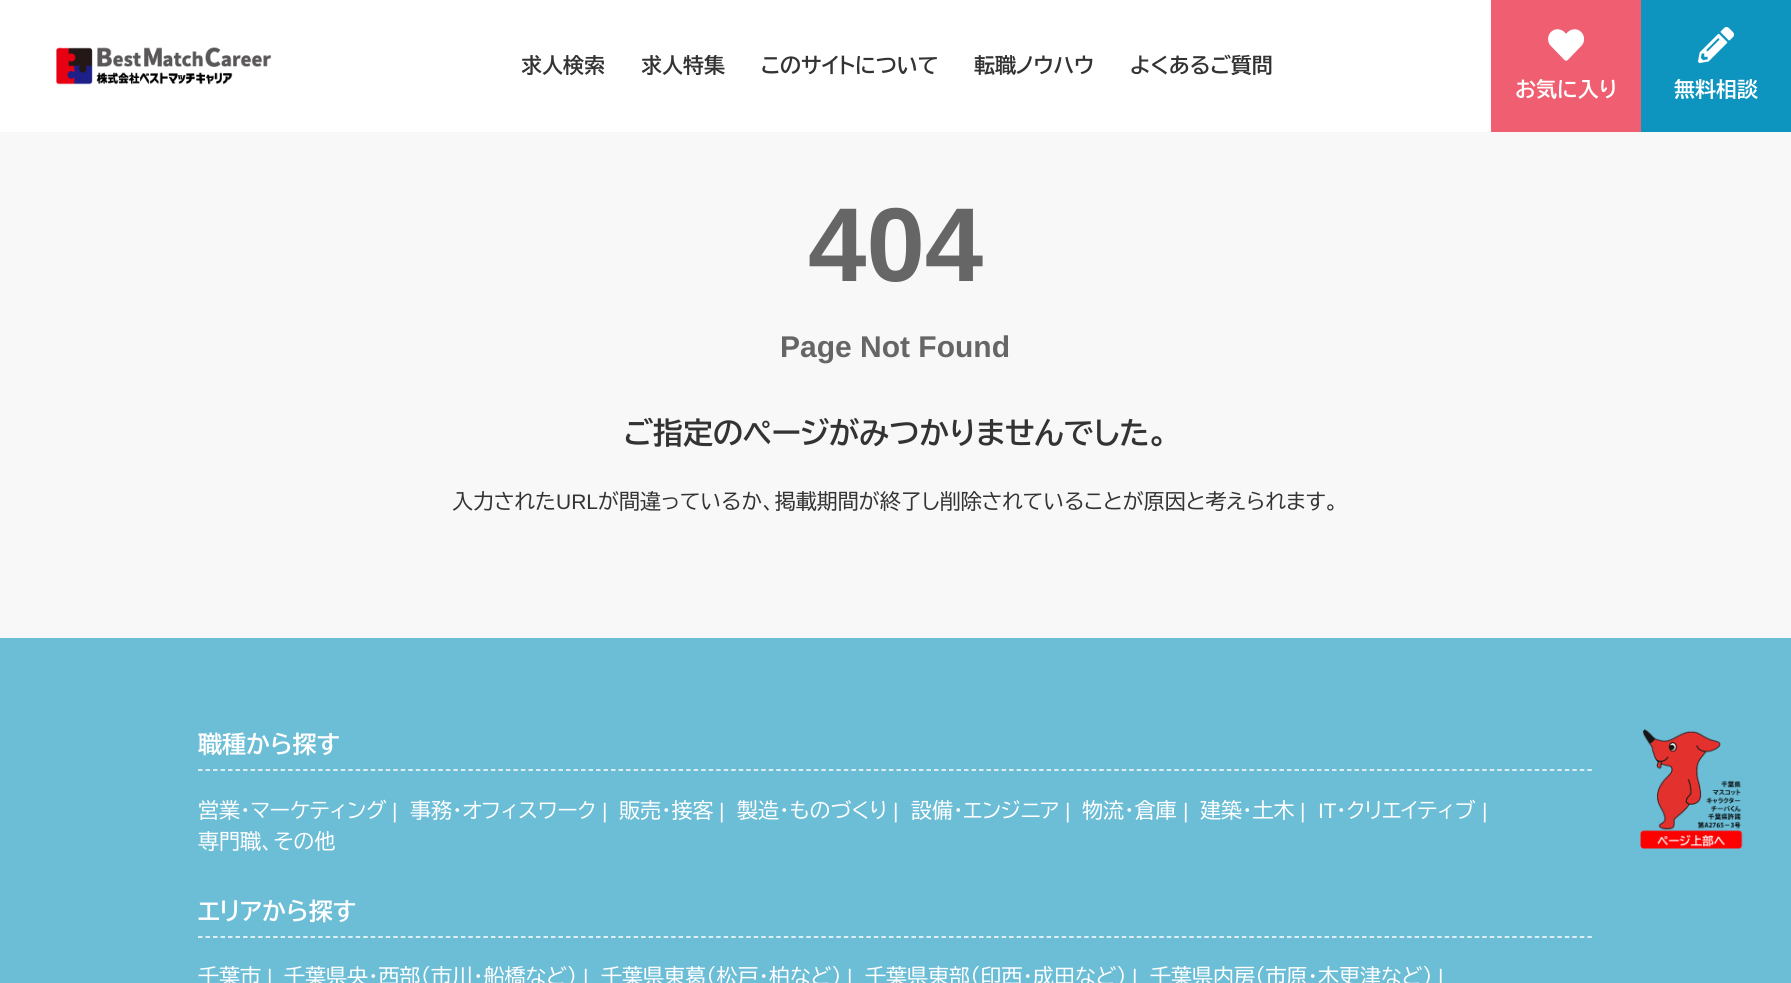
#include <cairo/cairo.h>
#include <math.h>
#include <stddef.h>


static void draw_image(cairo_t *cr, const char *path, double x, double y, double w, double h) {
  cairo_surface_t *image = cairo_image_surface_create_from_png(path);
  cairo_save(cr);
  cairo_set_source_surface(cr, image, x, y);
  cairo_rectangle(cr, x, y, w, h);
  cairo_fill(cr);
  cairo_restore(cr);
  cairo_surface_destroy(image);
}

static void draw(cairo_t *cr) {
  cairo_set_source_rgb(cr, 248 / 255.0, 248 / 255.0, 248 / 255.0);
  cairo_paint(cr);
  cairo_set_source_rgb(cr, 1, 1, 1);
  cairo_rectangle(cr, 0, 0, 1491, 132);
  cairo_fill(cr);
  draw_image(cr, "images/1.png", 56, 47, 216, 38);
  cairo_set_source_rgb(cr, 239 / 255.0, 95 / 255.0, 113 / 255.0);
  cairo_rectangle(cr, 1491, 0, 150, 132);
  cairo_fill(cr);
  draw_image(cr, "images/2.png", 1548, 29, 37, 32);
  cairo_set_source_rgb(cr, 13 / 255.0, 149 / 255.0, 191 / 255.0);
  cairo_rectangle(cr, 1641, 0, 150, 132);
  cairo_fill(cr);
  draw_image(cr, "images/3.png", 1698, 27, 37, 36);
  cairo_set_source_rgb(cr, 108 / 255.0, 189 / 255.0, 214 / 255.0);
  cairo_rectangle(cr, 0, 638, 1791, 345);
  cairo_fill(cr);
  cairo_new_path(cr);
  cairo_move_to(cr, 198, 770);
  cairo_line_to(cr, 1593, 770);
  cairo_set_source_rgb(cr, 1, 1, 1);
  cairo_set_line_width(cr, 1.5);
  cairo_set_dash(cr, (double[]){4.5, 3.01}, 2, 0);
  cairo_stroke(cr);
  cairo_new_path(cr);
  cairo_move_to(cr, 198, 937);
  cairo_line_to(cr, 1593, 937);
  cairo_stroke(cr);
  draw_image(cr, "images/4.png", 1640, 729, 103, 120);
  cairo_select_font_face(cr, "BIZ UDPGothic", CAIRO_FONT_SLANT_NORMAL, CAIRO_FONT_WEIGHT_BOLD);
  cairo_set_font_size(cr, 21);
  cairo_set_source_rgb(cr, 51 / 255.0, 51 / 255.0, 51 / 255.0);
  cairo_move_to(cr, 521, 73);
  cairo_show_text(cr, "求人検索");
  cairo_move_to(cr, 641, 73);
  cairo_show_text(cr, "求人特集");
  cairo_move_to(cr, 761, 73);
  cairo_show_text(cr, "このサイトについて");
  cairo_move_to(cr, 974, 73);
  cairo_show_text(cr, "転職ノウハウ");
  cairo_move_to(cr, 1130, 73);
  cairo_show_text(cr, "よくあるご質問");
  cairo_set_source_rgb(cr, 1, 1, 1);
  cairo_move_to(cr, 1515, 97);
  cairo_show_text(cr, "お気に入り");
  cairo_move_to(cr, 1674, 97);
  cairo_show_text(cr, "無料相談");
  cairo_select_font_face(cr, "Liberation Sans", CAIRO_FONT_SLANT_NORMAL, CAIRO_FONT_WEIGHT_BOLD);
  cairo_set_font_size(cr, 105);
  cairo_set_source_rgb(cr, 102 / 255.0, 102 / 255.0, 102 / 255.0);
  cairo_move_to(cr, 808, 281);
  cairo_show_text(cr, "404");
  cairo_set_font_size(cr, 30);
  cairo_move_to(cr, 780, 357);
  cairo_show_text(cr, "Page Not Found");
  cairo_select_font_face(cr, "BIZ UDPGothic", CAIRO_FONT_SLANT_NORMAL, CAIRO_FONT_WEIGHT_BOLD);
  cairo_set_source_rgb(cr, 51 / 255.0, 51 / 255.0, 51 / 255.0);
  cairo_move_to(cr, 624, 444);
  cairo_show_text(cr, "ご指定のページがみつかりませんでした。");
  cairo_select_font_face(cr, "BIZ UDPGothic", CAIRO_FONT_SLANT_NORMAL, CAIRO_FONT_WEIGHT_NORMAL);
  cairo_set_font_size(cr, 21);
  cairo_move_to(cr, 452, 509);
  cairo_show_text(cr, "入力された");
  cairo_select_font_face(cr, "Liberation Sans", CAIRO_FONT_SLANT_NORMAL, CAIRO_FONT_WEIGHT_NORMAL);
  cairo_move_to(cr, 556, 509);
  cairo_show_text(cr, "URL");
  cairo_select_font_face(cr, "BIZ UDPGothic", CAIRO_FONT_SLANT_NORMAL, CAIRO_FONT_WEIGHT_NORMAL);
  cairo_move_to(cr, 598, 509);
  cairo_show_text(cr, "が間違っているか、掲載期間が終了し削除されていることが原因と考えられます。");
  cairo_select_font_face(cr, "BIZ UDPGothic", CAIRO_FONT_SLANT_NORMAL, CAIRO_FONT_WEIGHT_BOLD);
  cairo_set_font_size(cr, 24);
  cairo_set_source_rgb(cr, 1, 1, 1);
  cairo_move_to(cr, 198, 753);
  cairo_show_text(cr, "職種から探す");
  cairo_select_font_face(cr, "BIZ UDPGothic", CAIRO_FONT_SLANT_NORMAL, CAIRO_FONT_WEIGHT_NORMAL);
  cairo_set_font_size(cr, 21);
  cairo_move_to(cr, 198, 818);
  cairo_show_text(cr, "営業・マーケティング");
  cairo_select_font_face(cr, "Liberation Sans", CAIRO_FONT_SLANT_NORMAL, CAIRO_FONT_WEIGHT_NORMAL);
  cairo_move_to(cr, 392, 818);
  cairo_show_text(cr, "|");
  cairo_select_font_face(cr, "BIZ UDPGothic", CAIRO_FONT_SLANT_NORMAL, CAIRO_FONT_WEIGHT_NORMAL);
  cairo_move_to(cr, 410, 818);
  cairo_show_text(cr, "事務・オフィスワーク");
  cairo_select_font_face(cr, "Liberation Sans", CAIRO_FONT_SLANT_NORMAL, CAIRO_FONT_WEIGHT_NORMAL);
  cairo_move_to(cr, 602, 818);
  cairo_show_text(cr, "|");
  cairo_select_font_face(cr, "BIZ UDPGothic", CAIRO_FONT_SLANT_NORMAL, CAIRO_FONT_WEIGHT_NORMAL);
  cairo_move_to(cr, 619, 818);
  cairo_show_text(cr, "販売・接客");
  cairo_select_font_face(cr, "Liberation Sans", CAIRO_FONT_SLANT_NORMAL, CAIRO_FONT_WEIGHT_NORMAL);
  cairo_move_to(cr, 719, 818);
  cairo_show_text(cr, "|");
  cairo_select_font_face(cr, "BIZ UDPGothic", CAIRO_FONT_SLANT_NORMAL, CAIRO_FONT_WEIGHT_NORMAL);
  cairo_move_to(cr, 737, 818);
  cairo_show_text(cr, "製造・ものづくり");
  cairo_select_font_face(cr, "Liberation Sans", CAIRO_FONT_SLANT_NORMAL, CAIRO_FONT_WEIGHT_NORMAL);
  cairo_move_to(cr, 893, 818);
  cairo_show_text(cr, "|");
  cairo_select_font_face(cr, "BIZ UDPGothic", CAIRO_FONT_SLANT_NORMAL, CAIRO_FONT_WEIGHT_NORMAL);
  cairo_move_to(cr, 911, 818);
  cairo_show_text(cr, "設備・エンジニア");
  cairo_select_font_face(cr, "Liberation Sans", CAIRO_FONT_SLANT_NORMAL, CAIRO_FONT_WEIGHT_NORMAL);
  cairo_move_to(cr, 1065, 818);
  cairo_show_text(cr, "|");
  cairo_select_font_face(cr, "BIZ UDPGothic", CAIRO_FONT_SLANT_NORMAL, CAIRO_FONT_WEIGHT_NORMAL);
  cairo_move_to(cr, 1082, 818);
  cairo_show_text(cr, "物流・倉庫");
  cairo_select_font_face(cr, "Liberation Sans", CAIRO_FONT_SLANT_NORMAL, CAIRO_FONT_WEIGHT_NORMAL);
  cairo_move_to(cr, 1183, 818);
  cairo_show_text(cr, "|");
  cairo_select_font_face(cr, "BIZ UDPGothic", CAIRO_FONT_SLANT_NORMAL, CAIRO_FONT_WEIGHT_NORMAL);
  cairo_move_to(cr, 1200, 818);
  cairo_show_text(cr, "建築・土木");
  cairo_select_font_face(cr, "Liberation Sans", CAIRO_FONT_SLANT_NORMAL, CAIRO_FONT_WEIGHT_NORMAL);
  cairo_move_to(cr, 1300, 818);
  cairo_show_text(cr, "|");
  cairo_move_to(cr, 1318, 818);
  cairo_show_text(cr, "IT");
  cairo_select_font_face(cr, "BIZ UDPGothic", CAIRO_FONT_SLANT_NORMAL, CAIRO_FONT_WEIGHT_NORMAL);
  cairo_move_to(cr, 1336, 818);
  cairo_show_text(cr, "・クリエイティブ");
  cairo_select_font_face(cr, "Liberation Sans", CAIRO_FONT_SLANT_NORMAL, CAIRO_FONT_WEIGHT_NORMAL);
  cairo_move_to(cr, 1482, 818);
  cairo_show_text(cr, "|");
  cairo_select_font_face(cr, "BIZ UDPGothic", CAIRO_FONT_SLANT_NORMAL, CAIRO_FONT_WEIGHT_NORMAL);
  cairo_move_to(cr, 198, 849);
  cairo_show_text(cr, "専門職、その他");
  cairo_select_font_face(cr, "BIZ UDPGothic", CAIRO_FONT_SLANT_NORMAL, CAIRO_FONT_WEIGHT_BOLD);
  cairo_set_font_size(cr, 24);
  cairo_move_to(cr, 198, 920);
  cairo_show_text(cr, "エリアから探す");
  cairo_select_font_face(cr, "BIZ UDPGothic", CAIRO_FONT_SLANT_NORMAL, CAIRO_FONT_WEIGHT_NORMAL);
  cairo_set_font_size(cr, 21);
  cairo_move_to(cr, 198, 984);
  cairo_show_text(cr, "千葉市");
  cairo_select_font_face(cr, "Liberation Sans", CAIRO_FONT_SLANT_NORMAL, CAIRO_FONT_WEIGHT_NORMAL);
  cairo_move_to(cr, 267, 984);
  cairo_show_text(cr, "|");
  cairo_select_font_face(cr, "BIZ UDPGothic", CAIRO_FONT_SLANT_NORMAL, CAIRO_FONT_WEIGHT_NORMAL);
  cairo_move_to(cr, 284, 984);
  cairo_show_text(cr, "千葉県央・西部（市川・船橋など）");
  cairo_select_font_face(cr, "Liberation Sans", CAIRO_FONT_SLANT_NORMAL, CAIRO_FONT_WEIGHT_NORMAL);
  cairo_move_to(cr, 583, 984);
  cairo_show_text(cr, "|");
  cairo_select_font_face(cr, "BIZ UDPGothic", CAIRO_FONT_SLANT_NORMAL, CAIRO_FONT_WEIGHT_NORMAL);
  cairo_move_to(cr, 601, 984);
  cairo_show_text(cr, "千葉県東葛（松戸・柏など）");
  cairo_select_font_face(cr, "Liberation Sans", CAIRO_FONT_SLANT_NORMAL, CAIRO_FONT_WEIGHT_NORMAL);
  cairo_move_to(cr, 847, 984);
  cairo_show_text(cr, "|");
  cairo_select_font_face(cr, "BIZ UDPGothic", CAIRO_FONT_SLANT_NORMAL, CAIRO_FONT_WEIGHT_NORMAL);
  cairo_move_to(cr, 865, 984);
  cairo_show_text(cr, "千葉県東部（印西・成田など）");
  cairo_select_font_face(cr, "Liberation Sans", CAIRO_FONT_SLANT_NORMAL, CAIRO_FONT_WEIGHT_NORMAL);
  cairo_move_to(cr, 1132, 984);
  cairo_show_text(cr, "|");
  cairo_select_font_face(cr, "BIZ UDPGothic", CAIRO_FONT_SLANT_NORMAL, CAIRO_FONT_WEIGHT_NORMAL);
  cairo_move_to(cr, 1150, 984);
  cairo_show_text(cr, "千葉県内房（市原・木更津など）");
  cairo_select_font_face(cr, "Liberation Sans", CAIRO_FONT_SLANT_NORMAL, CAIRO_FONT_WEIGHT_NORMAL);
  cairo_move_to(cr, 1438, 984);
  cairo_show_text(cr, "|");
}

int main(void) {
  cairo_surface_t *surface = cairo_image_surface_create(CAIRO_FORMAT_RGB24, 1791, 983);
  cairo_t *cr = cairo_create(surface);
  cairo_font_options_t *options = cairo_font_options_create();
  cairo_font_options_set_hint_metrics(options, CAIRO_HINT_METRICS_OFF);
  cairo_font_options_set_hint_style(options, CAIRO_HINT_STYLE_NONE);
  cairo_set_font_options(cr, options);
  cairo_set_miter_limit(cr, 4);
  draw(cr);
  cairo_surface_write_to_png(surface, "out.png");
  cairo_font_options_destroy(options);
  cairo_destroy(cr);
  cairo_surface_destroy(surface);
  return 0;
}
